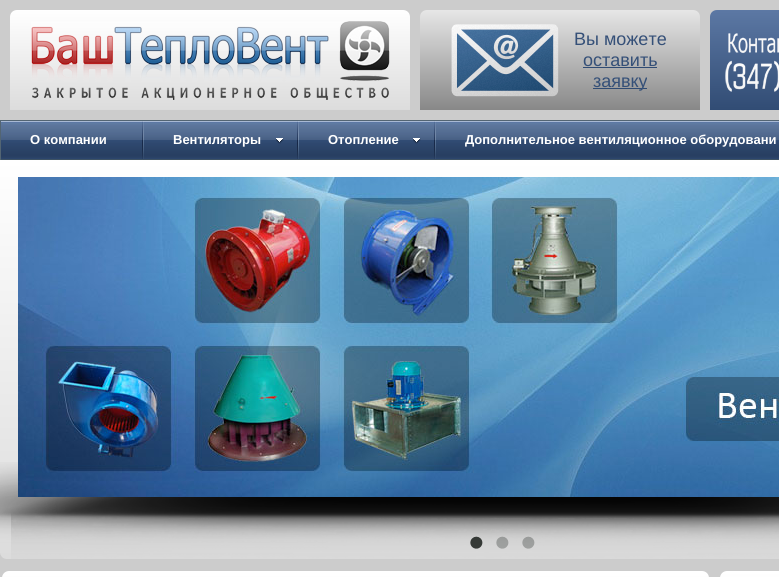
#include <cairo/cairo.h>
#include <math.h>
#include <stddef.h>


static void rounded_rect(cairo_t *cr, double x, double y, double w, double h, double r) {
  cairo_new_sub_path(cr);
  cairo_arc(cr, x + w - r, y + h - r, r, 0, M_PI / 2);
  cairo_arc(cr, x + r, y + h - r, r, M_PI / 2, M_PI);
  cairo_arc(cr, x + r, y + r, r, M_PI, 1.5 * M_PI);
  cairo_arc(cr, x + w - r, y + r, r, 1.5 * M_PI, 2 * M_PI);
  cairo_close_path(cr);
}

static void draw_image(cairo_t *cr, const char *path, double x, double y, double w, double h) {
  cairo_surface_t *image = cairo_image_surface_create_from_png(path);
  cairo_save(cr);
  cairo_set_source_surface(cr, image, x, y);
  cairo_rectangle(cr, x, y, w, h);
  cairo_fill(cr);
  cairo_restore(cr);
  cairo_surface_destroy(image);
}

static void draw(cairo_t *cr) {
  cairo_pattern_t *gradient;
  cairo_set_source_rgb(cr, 204 / 255.0, 204 / 255.0, 204 / 255.0);
  cairo_paint(cr);
  gradient = cairo_pattern_create_linear(210, 10, 210, 110);
  cairo_pattern_add_color_stop_rgba(gradient, 0, 1, 1, 1, 1);
  cairo_pattern_add_color_stop_rgba(gradient, 1, 220 / 255.0, 220 / 255.0, 220 / 255.0, 1);
  cairo_set_source(cr, gradient);
  cairo_pattern_destroy(gradient);
  cairo_new_path(cr);
  cairo_move_to(cr, 17, 10);
  cairo_line_to(cr, 403, 10);
  cairo_curve_to(cr, 407, 10, 410, 13, 410, 17);
  cairo_line_to(cr, 410, 110);
  cairo_line_to(cr, 10, 110);
  cairo_line_to(cr, 10, 17);
  cairo_curve_to(cr, 10, 13, 13, 10, 17, 10);
  cairo_close_path(cr);
  cairo_fill(cr);
  draw_image(cr, "images/1.png", 31, 21, 359, 79);
  gradient = cairo_pattern_create_linear(560, 10, 560, 110);
  cairo_pattern_add_color_stop_rgba(gradient, 0, 230 / 255.0, 230 / 255.0, 230 / 255.0, 1);
  cairo_pattern_add_color_stop_rgba(gradient, 1, 136 / 255.0, 136 / 255.0, 136 / 255.0, 1);
  cairo_set_source(cr, gradient);
  cairo_pattern_destroy(gradient);
  cairo_new_path(cr);
  cairo_move_to(cr, 427, 10);
  cairo_line_to(cr, 693, 10);
  cairo_curve_to(cr, 697, 10, 700, 13, 700, 17);
  cairo_line_to(cr, 700, 110);
  cairo_line_to(cr, 420, 110);
  cairo_line_to(cr, 420, 17);
  cairo_curve_to(cr, 420, 13, 423, 10, 427, 10);
  cairo_close_path(cr);
  cairo_fill(cr);
  draw_image(cr, "images/2.png", 451, 24, 108, 73);
  cairo_set_source_rgb(cr, 48 / 255.0, 75 / 255.0, 115 / 255.0);
  cairo_rectangle(cr, 583, 67, 74, 1);
  cairo_fill(cr);
  cairo_rectangle(cr, 593, 88, 54, 1);
  cairo_fill(cr);
  gradient = cairo_pattern_create_linear(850, 10, 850, 110);
  cairo_pattern_add_color_stop_rgba(gradient, 0, 92 / 255.0, 120 / 255.0, 164 / 255.0, 1);
  cairo_pattern_add_color_stop_rgba(gradient, 1, 49 / 255.0, 76 / 255.0, 116 / 255.0, 1);
  cairo_set_source(cr, gradient);
  cairo_pattern_destroy(gradient);
  cairo_new_path(cr);
  cairo_move_to(cr, 717, 10);
  cairo_line_to(cr, 779, 10);
  cairo_curve_to(cr, 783, 10, 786, 13, 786, 17);
  cairo_line_to(cr, 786, 110);
  cairo_line_to(cr, 710, 110);
  cairo_line_to(cr, 710, 17);
  cairo_curve_to(cr, 710, 13, 713, 10, 717, 10);
  cairo_close_path(cr);
  cairo_fill(cr);
  draw_image(cr, "images/3.png", 725, 33, 54, 59);
  draw_image(cr, "images/4.png", 1, 120, 778, 40);
  cairo_set_source_rgb(cr, 83 / 255.0, 101 / 255.0, 115 / 255.0);
  cairo_rectangle(cr, 0, 120, 1, 40);
  cairo_fill(cr);
  draw_image(cr, "images/5.png", 142, 121, 2, 38);
  draw_image(cr, "images/6.png", 297, 121, 2, 38);
  draw_image(cr, "images/7.png", 276, 138, 8, 6);
  draw_image(cr, "images/5.png", 434, 121, 2, 38);
  draw_image(cr, "images/7.png", 413, 138, 8, 6);
  gradient = cairo_pattern_create_linear(490, 160, 490, 559);
  cairo_pattern_add_color_stop_rgba(gradient, 0, 1, 1, 1, 1);
  cairo_pattern_add_color_stop_rgba(gradient, 1, 220 / 255.0, 220 / 255.0, 220 / 255.0, 1);
  cairo_set_source(cr, gradient);
  cairo_pattern_destroy(gradient);
  cairo_new_path(cr);
  cairo_move_to(cr, 0, 160);
  cairo_line_to(cr, 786, 160);
  cairo_line_to(cr, 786, 552);
  cairo_curve_to(cr, 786, 556, 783, 559, 779, 559);
  cairo_line_to(cr, 7, 559);
  cairo_curve_to(cr, 3, 559, 0, 556, 0, 552);
  cairo_close_path(cr);
  cairo_fill(cr);
  draw_image(cr, "images/9.png", 0, 462, 779, 97);
  draw_image(cr, "images/8.png", 18, 177, 761, 320);
  draw_image(cr, "images/10.png", 470, 536, 13, 13);
  draw_image(cr, "images/11.png", 496, 536, 13, 13);
  draw_image(cr, "images/12.png", 522, 536, 13, 13);
  gradient = cairo_pattern_create_linear(356, 571, 356, 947);
  cairo_pattern_add_color_stop_rgba(gradient, 0, 1, 1, 1, 1);
  cairo_pattern_add_color_stop_rgba(gradient, 1, 220 / 255.0, 220 / 255.0, 220 / 255.0, 1);
  cairo_set_source(cr, gradient);
  cairo_pattern_destroy(gradient);
  rounded_rect(cr, 2, 571, 707, 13, 7);
  cairo_fill(cr);
  gradient = cairo_pattern_create_linear(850, 571, 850, 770);
  cairo_pattern_add_color_stop_rgba(gradient, 0, 1, 1, 1, 1);
  cairo_pattern_add_color_stop_rgba(gradient, 1, 220 / 255.0, 220 / 255.0, 220 / 255.0, 1);
  cairo_set_source(cr, gradient);
  cairo_pattern_destroy(gradient);
  rounded_rect(cr, 720, 571, 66, 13, 7);
  cairo_fill(cr);
  cairo_select_font_face(cr, "Liberation Sans", CAIRO_FONT_SLANT_NORMAL, CAIRO_FONT_WEIGHT_NORMAL);
  cairo_set_font_size(cr, 18);
  cairo_set_source_rgb(cr, 53 / 255.0, 80 / 255.0, 120 / 255.0);
  cairo_move_to(cr, 574, 45);
  cairo_show_text(cr, "Вы можете");
  cairo_move_to(cr, 583, 66);
  cairo_show_text(cr, "оставить");
  cairo_move_to(cr, 593, 87);
  cairo_show_text(cr, "заявку");
  cairo_select_font_face(cr, "Liberation Sans", CAIRO_FONT_SLANT_NORMAL, CAIRO_FONT_WEIGHT_BOLD);
  cairo_set_font_size(cr, 13);
  cairo_set_source_rgb(cr, 1, 1, 1);
  cairo_move_to(cr, 30, 144);
  cairo_show_text(cr, "О компании");
  cairo_move_to(cr, 173, 144);
  cairo_show_text(cr, "Вентиляторы");
  cairo_move_to(cr, 328, 144);
  cairo_show_text(cr, "Отопление");
  cairo_move_to(cr, 465, 144);
  cairo_show_text(cr, "Дополнительное вентиляционное оборудовани");
}

int main(void) {
  cairo_surface_t *surface = cairo_image_surface_create(CAIRO_FORMAT_RGB24, 779, 577);
  cairo_t *cr = cairo_create(surface);
  cairo_font_options_t *options = cairo_font_options_create();
  cairo_font_options_set_hint_metrics(options, CAIRO_HINT_METRICS_OFF);
  cairo_font_options_set_hint_style(options, CAIRO_HINT_STYLE_NONE);
  cairo_set_font_options(cr, options);
  cairo_set_miter_limit(cr, 4);
  draw(cr);
  cairo_surface_write_to_png(surface, "out.png");
  cairo_font_options_destroy(options);
  cairo_destroy(cr);
  cairo_surface_destroy(surface);
  return 0;
}
